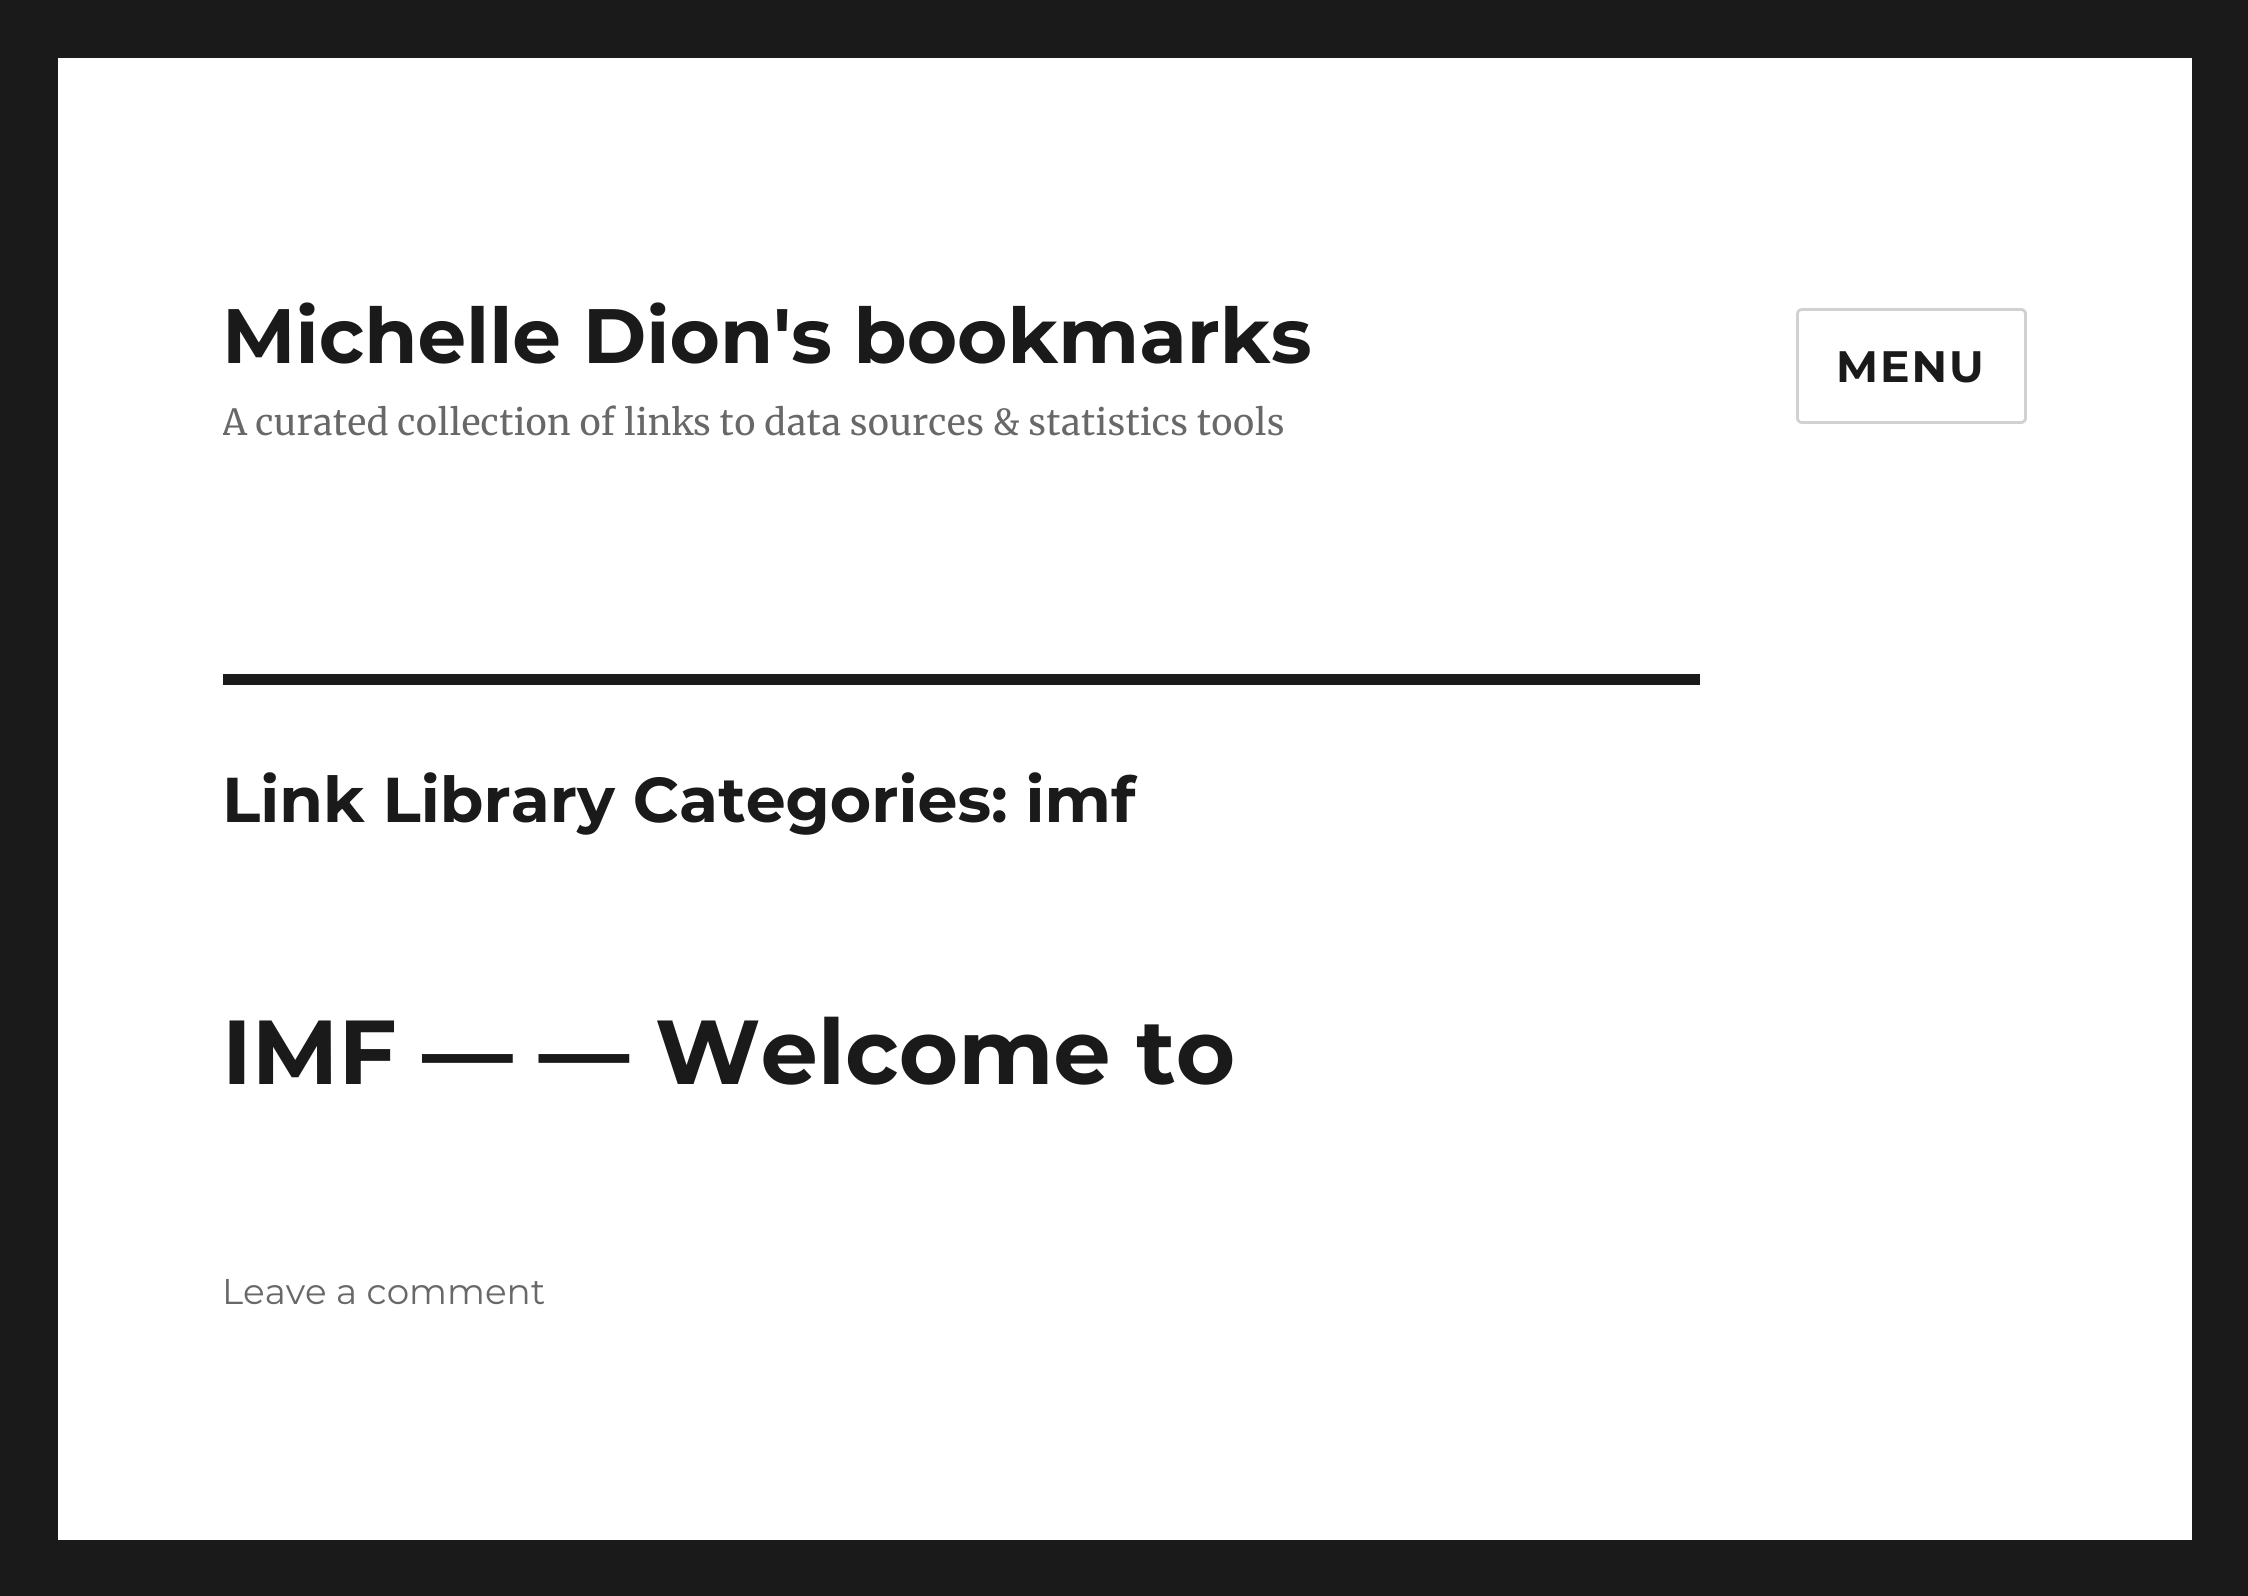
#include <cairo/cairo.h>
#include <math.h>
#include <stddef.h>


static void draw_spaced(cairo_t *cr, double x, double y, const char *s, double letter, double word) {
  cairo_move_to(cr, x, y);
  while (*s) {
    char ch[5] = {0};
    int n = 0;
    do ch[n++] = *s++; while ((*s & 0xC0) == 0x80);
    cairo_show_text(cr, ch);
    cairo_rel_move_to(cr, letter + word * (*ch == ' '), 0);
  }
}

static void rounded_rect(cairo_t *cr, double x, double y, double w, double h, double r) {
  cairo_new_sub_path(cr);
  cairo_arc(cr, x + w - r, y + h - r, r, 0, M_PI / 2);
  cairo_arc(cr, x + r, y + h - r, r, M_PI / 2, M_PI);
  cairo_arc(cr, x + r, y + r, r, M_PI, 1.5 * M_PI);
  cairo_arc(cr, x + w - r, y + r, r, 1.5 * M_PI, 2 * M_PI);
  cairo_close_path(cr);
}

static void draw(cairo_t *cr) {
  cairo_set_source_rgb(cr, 26 / 255.0, 26 / 255.0, 26 / 255.0);
  cairo_paint(cr);
  cairo_set_source_rgb(cr, 1, 1, 1);
  cairo_rectangle(cr, 58, 58, 2134, 1482);
  cairo_fill(cr);
  rounded_rect(cr, 1797.5, 309.5, 228, 113, 4.5);
  cairo_set_source_rgb(cr, 209 / 255.0, 209 / 255.0, 209 / 255.0);
  cairo_set_line_width(cr, 3);
  cairo_stroke(cr);
  cairo_set_source_rgb(cr, 26 / 255.0, 26 / 255.0, 26 / 255.0);
  cairo_rectangle(cr, 223, 674, 1477, 11);
  cairo_fill(cr);
  cairo_select_font_face(cr, "Montserrat Thin", CAIRO_FONT_SLANT_NORMAL, CAIRO_FONT_WEIGHT_NORMAL);
  cairo_set_font_size(cr, 77);
  cairo_move_to(cr, 222, 363);
  cairo_show_text(cr, "Michelle Dion's bookmarks");
  cairo_save(cr);
  cairo_rectangle(cr, 223, 289, 1089, 154);
  cairo_clip(cr);
  cairo_select_font_face(cr, "Merriweather", CAIRO_FONT_SLANT_NORMAL, CAIRO_FONT_WEIGHT_NORMAL);
  cairo_set_font_size(cr, 35.75);
  cairo_set_source_rgb(cr, 104 / 255.0, 104 / 255.0, 104 / 255.0);
  cairo_move_to(cr, 222, 435);
  cairo_show_text(cr, "A curated collection of links to data sources & statistics tools");
  cairo_restore(cr);
  cairo_set_font_size(cr, 44);
  draw_spaced(cr, 1836, 382, "MENU", 2, 0);
  cairo_set_font_size(cr, 63.25);
  cairo_move_to(cr, 222, 822);
  cairo_show_text(cr, "Link Library Categories: imf");
  cairo_set_font_size(cr, 90.75);
  cairo_move_to(cr, 222, 1084);
  cairo_show_text(cr, "IMF — — Welcome to");
  cairo_select_font_face(cr, "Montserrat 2 Thin", CAIRO_FONT_SLANT_NORMAL, CAIRO_FONT_WEIGHT_NORMAL);
  cairo_set_font_size(cr, 35.75);
  cairo_set_source_rgb(cr, 104 / 255.0, 104 / 255.0, 104 / 255.0);
  cairo_move_to(cr, 222, 1304);
  cairo_show_text(cr, "Leave a comment");
}

int main(void) {
  cairo_surface_t *surface = cairo_image_surface_create(CAIRO_FORMAT_RGB24, 2248, 1596);
  cairo_t *cr = cairo_create(surface);
  cairo_font_options_t *options = cairo_font_options_create();
  cairo_font_options_set_hint_metrics(options, CAIRO_HINT_METRICS_OFF);
  cairo_font_options_set_hint_style(options, CAIRO_HINT_STYLE_NONE);
  cairo_set_font_options(cr, options);
  cairo_set_miter_limit(cr, 4);
  draw(cr);
  cairo_surface_write_to_png(surface, "out.png");
  cairo_font_options_destroy(options);
  cairo_destroy(cr);
  cairo_surface_destroy(surface);
  return 0;
}
